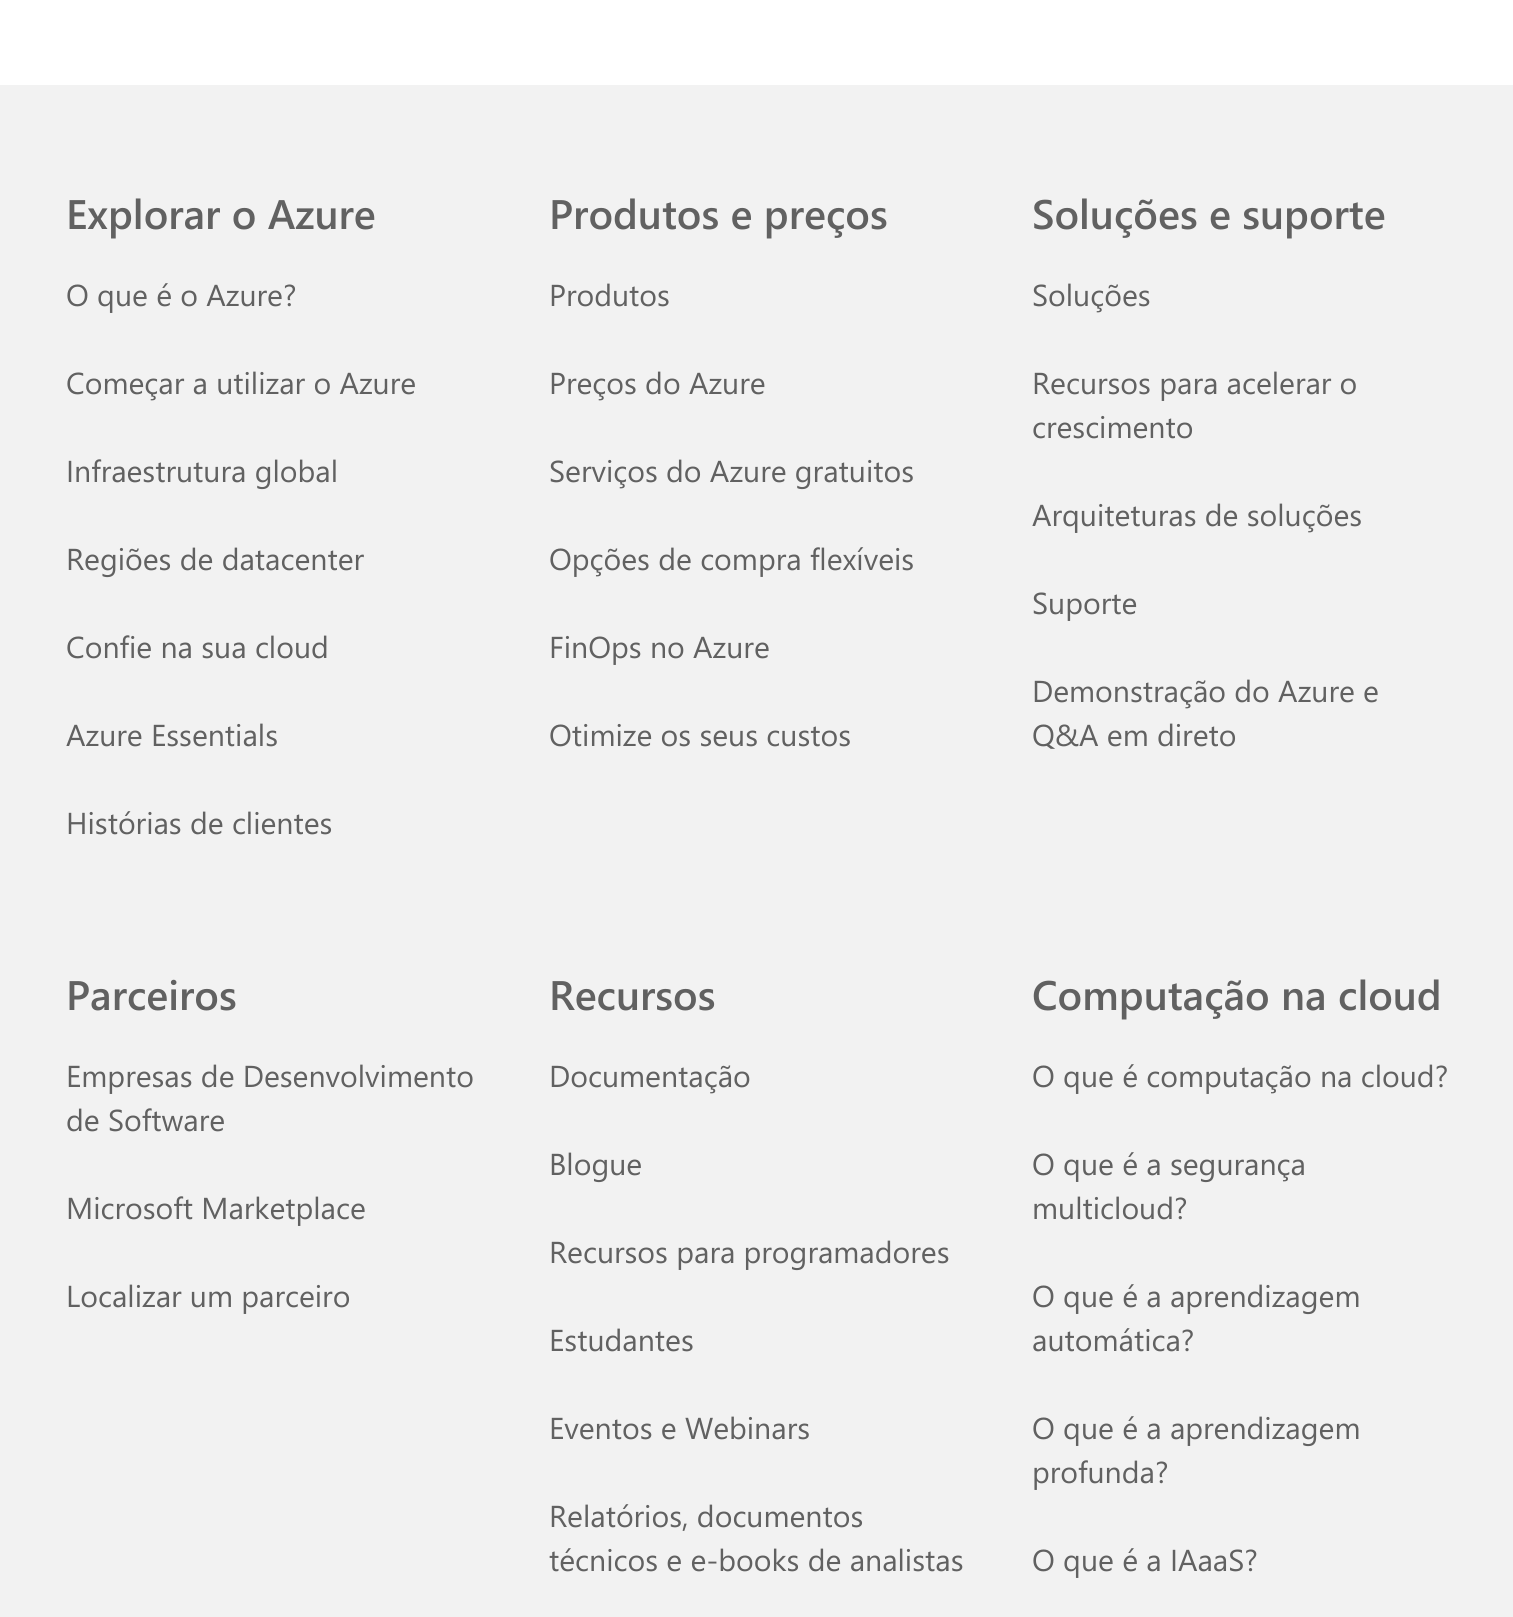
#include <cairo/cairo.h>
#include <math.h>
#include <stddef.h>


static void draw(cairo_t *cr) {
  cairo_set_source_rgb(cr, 1, 1, 1);
  cairo_paint(cr);
  cairo_set_source_rgb(cr, 242 / 255.0, 242 / 255.0, 242 / 255.0);
  cairo_rectangle(cr, 0, 85, 1513, 1532);
  cairo_fill(cr);
  cairo_select_font_face(cr, "Segoe UI SemiBold", CAIRO_FONT_SLANT_NORMAL, CAIRO_FONT_WEIGHT_NORMAL);
  cairo_set_font_size(cr, 41.25);
  cairo_set_source_rgb(cr, 97 / 255.0, 97 / 255.0, 97 / 255.0);
  cairo_move_to(cr, 66, 229);
  cairo_show_text(cr, "Explorar o Azure");
  cairo_select_font_face(cr, "Segoe UI", CAIRO_FONT_SLANT_NORMAL, CAIRO_FONT_WEIGHT_NORMAL);
  cairo_set_font_size(cr, 30.25);
  cairo_move_to(cr, 66, 306);
  cairo_show_text(cr, "O que é o Azure?");
  cairo_move_to(cr, 66, 394);
  cairo_show_text(cr, "Começar a utilizar o Azure");
  cairo_move_to(cr, 66, 482);
  cairo_show_text(cr, "Infraestrutura global");
  cairo_move_to(cr, 66, 570);
  cairo_show_text(cr, "Regiões de datacenter");
  cairo_move_to(cr, 66, 658);
  cairo_show_text(cr, "Confie na sua cloud");
  cairo_move_to(cr, 66, 746);
  cairo_show_text(cr, "Azure Essentials");
  cairo_move_to(cr, 66, 834);
  cairo_show_text(cr, "Histórias de clientes");
  cairo_select_font_face(cr, "Segoe UI SemiBold", CAIRO_FONT_SLANT_NORMAL, CAIRO_FONT_WEIGHT_NORMAL);
  cairo_set_font_size(cr, 41.25);
  cairo_move_to(cr, 549, 229);
  cairo_show_text(cr, "Produtos e preços");
  cairo_select_font_face(cr, "Segoe UI", CAIRO_FONT_SLANT_NORMAL, CAIRO_FONT_WEIGHT_NORMAL);
  cairo_set_font_size(cr, 30.25);
  cairo_move_to(cr, 549, 306);
  cairo_show_text(cr, "Produtos");
  cairo_move_to(cr, 549, 394);
  cairo_show_text(cr, "Preços do Azure");
  cairo_move_to(cr, 549, 482);
  cairo_show_text(cr, "Serviços do Azure gratuitos");
  cairo_move_to(cr, 549, 570);
  cairo_show_text(cr, "Opções de compra flexíveis");
  cairo_move_to(cr, 549, 658);
  cairo_show_text(cr, "FinOps no Azure");
  cairo_move_to(cr, 549, 746);
  cairo_show_text(cr, "Otimize os seus custos");
  cairo_select_font_face(cr, "Segoe UI SemiBold", CAIRO_FONT_SLANT_NORMAL, CAIRO_FONT_WEIGHT_NORMAL);
  cairo_set_font_size(cr, 41.25);
  cairo_move_to(cr, 1032, 229);
  cairo_show_text(cr, "Soluções e suporte");
  cairo_select_font_face(cr, "Segoe UI", CAIRO_FONT_SLANT_NORMAL, CAIRO_FONT_WEIGHT_NORMAL);
  cairo_set_font_size(cr, 30.25);
  cairo_move_to(cr, 1032, 306);
  cairo_show_text(cr, "Soluções");
  cairo_move_to(cr, 1032, 394);
  cairo_show_text(cr, "Recursos para acelerar o");
  cairo_move_to(cr, 1032, 438);
  cairo_show_text(cr, "crescimento");
  cairo_move_to(cr, 1032, 526);
  cairo_show_text(cr, "Arquiteturas de soluções");
  cairo_move_to(cr, 1032, 614);
  cairo_show_text(cr, "Suporte");
  cairo_move_to(cr, 1032, 702);
  cairo_show_text(cr, "Demonstração do Azure e");
  cairo_move_to(cr, 1032, 746);
  cairo_show_text(cr, "Q&A em direto");
  cairo_select_font_face(cr, "Segoe UI SemiBold", CAIRO_FONT_SLANT_NORMAL, CAIRO_FONT_WEIGHT_NORMAL);
  cairo_set_font_size(cr, 41.25);
  cairo_move_to(cr, 66, 1010);
  cairo_show_text(cr, "Parceiros");
  cairo_select_font_face(cr, "Segoe UI", CAIRO_FONT_SLANT_NORMAL, CAIRO_FONT_WEIGHT_NORMAL);
  cairo_set_font_size(cr, 30.25);
  cairo_move_to(cr, 66, 1087);
  cairo_show_text(cr, "Empresas de Desenvolvimento");
  cairo_move_to(cr, 66, 1131);
  cairo_show_text(cr, "de Software");
  cairo_move_to(cr, 66, 1219);
  cairo_show_text(cr, "Microsoft Marketplace");
  cairo_move_to(cr, 66, 1307);
  cairo_show_text(cr, "Localizar um parceiro");
  cairo_select_font_face(cr, "Segoe UI SemiBold", CAIRO_FONT_SLANT_NORMAL, CAIRO_FONT_WEIGHT_NORMAL);
  cairo_set_font_size(cr, 41.25);
  cairo_move_to(cr, 549, 1010);
  cairo_show_text(cr, "Recursos");
  cairo_select_font_face(cr, "Segoe UI", CAIRO_FONT_SLANT_NORMAL, CAIRO_FONT_WEIGHT_NORMAL);
  cairo_set_font_size(cr, 30.25);
  cairo_move_to(cr, 549, 1087);
  cairo_show_text(cr, "Documentação");
  cairo_move_to(cr, 549, 1175);
  cairo_show_text(cr, "Blogue");
  cairo_move_to(cr, 549, 1263);
  cairo_show_text(cr, "Recursos para programadores");
  cairo_move_to(cr, 549, 1351);
  cairo_show_text(cr, "Estudantes");
  cairo_move_to(cr, 549, 1439);
  cairo_show_text(cr, "Eventos e Webinars");
  cairo_move_to(cr, 549, 1527);
  cairo_show_text(cr, "Relatórios, documentos");
  cairo_move_to(cr, 549, 1571);
  cairo_show_text(cr, "técnicos e e-books de analistas");
  cairo_select_font_face(cr, "Segoe UI SemiBold", CAIRO_FONT_SLANT_NORMAL, CAIRO_FONT_WEIGHT_NORMAL);
  cairo_set_font_size(cr, 41.25);
  cairo_move_to(cr, 1032, 1010);
  cairo_show_text(cr, "Computação na cloud");
  cairo_select_font_face(cr, "Segoe UI", CAIRO_FONT_SLANT_NORMAL, CAIRO_FONT_WEIGHT_NORMAL);
  cairo_set_font_size(cr, 30.25);
  cairo_move_to(cr, 1032, 1087);
  cairo_show_text(cr, "O que é computação na cloud?");
  cairo_move_to(cr, 1032, 1175);
  cairo_show_text(cr, "O que é a segurança");
  cairo_move_to(cr, 1032, 1219);
  cairo_show_text(cr, "multicloud?");
  cairo_move_to(cr, 1032, 1307);
  cairo_show_text(cr, "O que é a aprendizagem");
  cairo_move_to(cr, 1032, 1351);
  cairo_show_text(cr, "automática?");
  cairo_move_to(cr, 1032, 1439);
  cairo_show_text(cr, "O que é a aprendizagem");
  cairo_move_to(cr, 1032, 1483);
  cairo_show_text(cr, "profunda?");
  cairo_move_to(cr, 1032, 1571);
  cairo_show_text(cr, "O que é a IAaaS?");
}

int main(void) {
  cairo_surface_t *surface = cairo_image_surface_create(CAIRO_FORMAT_RGB24, 1513, 1617);
  cairo_t *cr = cairo_create(surface);
  cairo_font_options_t *options = cairo_font_options_create();
  cairo_font_options_set_hint_metrics(options, CAIRO_HINT_METRICS_OFF);
  cairo_font_options_set_hint_style(options, CAIRO_HINT_STYLE_NONE);
  cairo_set_font_options(cr, options);
  cairo_set_miter_limit(cr, 4);
  draw(cr);
  cairo_surface_write_to_png(surface, "out.png");
  cairo_font_options_destroy(options);
  cairo_destroy(cr);
  cairo_surface_destroy(surface);
  return 0;
}
